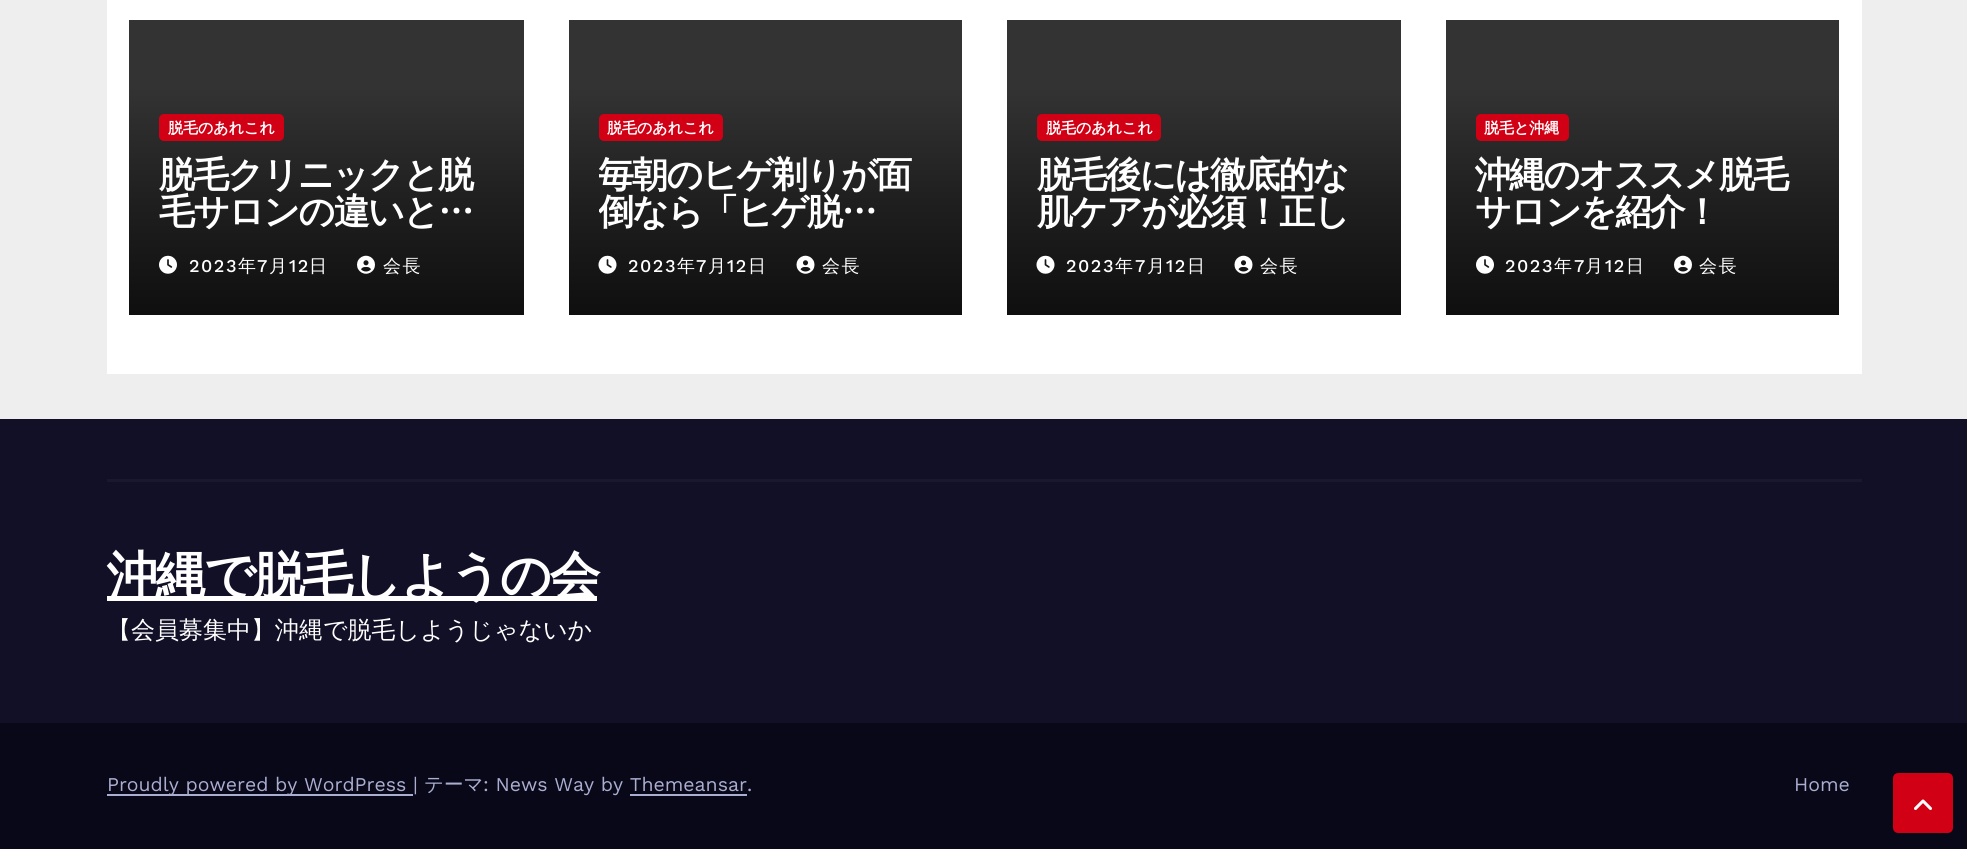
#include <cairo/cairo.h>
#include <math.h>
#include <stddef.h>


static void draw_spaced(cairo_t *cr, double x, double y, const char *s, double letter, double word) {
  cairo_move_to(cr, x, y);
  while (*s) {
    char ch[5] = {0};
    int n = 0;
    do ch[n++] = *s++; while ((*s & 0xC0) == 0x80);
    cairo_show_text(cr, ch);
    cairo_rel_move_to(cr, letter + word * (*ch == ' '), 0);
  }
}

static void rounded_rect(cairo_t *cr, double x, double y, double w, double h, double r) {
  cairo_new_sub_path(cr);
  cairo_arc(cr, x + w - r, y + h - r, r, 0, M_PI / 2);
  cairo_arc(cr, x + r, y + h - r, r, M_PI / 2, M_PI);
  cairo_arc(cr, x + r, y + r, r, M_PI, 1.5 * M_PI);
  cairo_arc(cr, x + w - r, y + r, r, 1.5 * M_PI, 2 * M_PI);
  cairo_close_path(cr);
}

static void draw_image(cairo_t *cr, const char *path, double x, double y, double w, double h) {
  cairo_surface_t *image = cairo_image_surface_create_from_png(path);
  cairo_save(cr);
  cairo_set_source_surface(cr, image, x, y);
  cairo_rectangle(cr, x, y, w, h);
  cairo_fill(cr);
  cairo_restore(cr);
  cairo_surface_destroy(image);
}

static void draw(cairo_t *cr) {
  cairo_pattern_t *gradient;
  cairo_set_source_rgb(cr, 238 / 255.0, 238 / 255.0, 238 / 255.0);
  cairo_paint(cr);
  cairo_set_source_rgb(cr, 1, 1, 1);
  cairo_rectangle(cr, 107, 0, 1755, 374);
  cairo_fill(cr);
  cairo_set_source_rgb(cr, 51 / 255.0, 51 / 255.0, 51 / 255.0);
  cairo_rectangle(cr, 129, 20, 395, 67);
  cairo_fill(cr);
  gradient = cairo_pattern_create_linear(326, 87, 326, 315);
  cairo_pattern_add_color_stop_rgba(gradient, 0, 51 / 255.0, 51 / 255.0, 51 / 255.0, 1);
  cairo_pattern_add_color_stop_rgba(gradient, 0.5, 31 / 255.0, 31 / 255.0, 31 / 255.0, 1);
  cairo_pattern_add_color_stop_rgba(gradient, 1, 15 / 255.0, 15 / 255.0, 15 / 255.0, 1);
  cairo_set_source(cr, gradient);
  cairo_pattern_destroy(gradient);
  cairo_rectangle(cr, 129, 87, 395, 228);
  cairo_fill(cr);
  cairo_set_source_rgb(cr, 209 / 255.0, 0, 20 / 255.0);
  rounded_rect(cr, 159, 114, 125, 27, 5);
  cairo_fill(cr);
  draw_image(cr, "images/1.png", 159, 255, 18, 19);
  draw_image(cr, "images/2.png", 357, 255, 18, 19);
  cairo_set_source_rgb(cr, 51 / 255.0, 51 / 255.0, 51 / 255.0);
  cairo_rectangle(cr, 569, 20, 393, 67);
  cairo_fill(cr);
  gradient = cairo_pattern_create_linear(765, 87, 765, 315);
  cairo_pattern_add_color_stop_rgba(gradient, 0, 51 / 255.0, 51 / 255.0, 51 / 255.0, 1);
  cairo_pattern_add_color_stop_rgba(gradient, 0.5, 31 / 255.0, 31 / 255.0, 31 / 255.0, 1);
  cairo_pattern_add_color_stop_rgba(gradient, 1, 15 / 255.0, 15 / 255.0, 15 / 255.0, 1);
  cairo_set_source(cr, gradient);
  cairo_pattern_destroy(gradient);
  cairo_rectangle(cr, 569, 87, 393, 228);
  cairo_fill(cr);
  cairo_set_source_rgb(cr, 209 / 255.0, 0, 20 / 255.0);
  rounded_rect(cr, 599, 114, 124, 27, 5);
  cairo_fill(cr);
  draw_image(cr, "images/3.png", 598, 255, 19, 19);
  draw_image(cr, "images/4.png", 796, 255, 19, 19);
  cairo_set_source_rgb(cr, 51 / 255.0, 51 / 255.0, 51 / 255.0);
  cairo_rectangle(cr, 1007, 20, 394, 67);
  cairo_fill(cr);
  gradient = cairo_pattern_create_linear(1204, 87, 1204, 315);
  cairo_pattern_add_color_stop_rgba(gradient, 0, 51 / 255.0, 51 / 255.0, 51 / 255.0, 1);
  cairo_pattern_add_color_stop_rgba(gradient, 0.5, 31 / 255.0, 31 / 255.0, 31 / 255.0, 1);
  cairo_pattern_add_color_stop_rgba(gradient, 1, 15 / 255.0, 15 / 255.0, 15 / 255.0, 1);
  cairo_set_source(cr, gradient);
  cairo_pattern_destroy(gradient);
  cairo_rectangle(cr, 1007, 87, 394, 228);
  cairo_fill(cr);
  cairo_set_source_rgb(cr, 209 / 255.0, 0, 20 / 255.0);
  rounded_rect(cr, 1037, 114, 124, 27, 5);
  cairo_fill(cr);
  draw_image(cr, "images/3.png", 1036, 255, 19, 19);
  draw_image(cr, "images/4.png", 1234, 255, 19, 19);
  cairo_set_source_rgb(cr, 51 / 255.0, 51 / 255.0, 51 / 255.0);
  cairo_rectangle(cr, 1446, 20, 393, 67);
  cairo_fill(cr);
  gradient = cairo_pattern_create_linear(1643, 87, 1643, 315);
  cairo_pattern_add_color_stop_rgba(gradient, 0, 51 / 255.0, 51 / 255.0, 51 / 255.0, 1);
  cairo_pattern_add_color_stop_rgba(gradient, 0.5, 31 / 255.0, 31 / 255.0, 31 / 255.0, 1);
  cairo_pattern_add_color_stop_rgba(gradient, 1, 15 / 255.0, 15 / 255.0, 15 / 255.0, 1);
  cairo_set_source(cr, gradient);
  cairo_pattern_destroy(gradient);
  cairo_rectangle(cr, 1446, 87, 393, 228);
  cairo_fill(cr);
  cairo_set_source_rgb(cr, 209 / 255.0, 0, 20 / 255.0);
  rounded_rect(cr, 1476, 114, 93, 27, 5);
  cairo_fill(cr);
  draw_image(cr, "images/1.png", 1476, 255, 18, 19);
  draw_image(cr, "images/2.png", 1674, 255, 18, 19);
  cairo_set_source_rgb(cr, 18 / 255.0, 16 / 255.0, 38 / 255.0);
  cairo_rectangle(cr, 0, 419, 1967, 304);
  cairo_fill(cr);
  cairo_set_source_rgb(cr, 26 / 255.0, 24 / 255.0, 46 / 255.0);
  cairo_rectangle(cr, 107, 479, 1755, 3);
  cairo_fill(cr);
  cairo_set_source_rgb(cr, 1, 1, 1);
  cairo_rectangle(cr, 107, 596, 490, 5);
  cairo_fill(cr);
  cairo_set_source_rgb(cr, 9 / 255.0, 8 / 255.0, 24 / 255.0);
  cairo_rectangle(cr, 0, 723, 1967, 126);
  cairo_fill(cr);
  cairo_set_source_rgb(cr, 170 / 255.0, 174 / 255.0, 209 / 255.0);
  cairo_rectangle(cr, 107, 794, 306, 2);
  cairo_fill(cr);
  cairo_rectangle(cr, 630, 794, 117, 2);
  cairo_fill(cr);
  cairo_set_source_rgb(cr, 209 / 255.0, 0, 20 / 255.0);
  rounded_rect(cr, 1894.5, 774.5, 57, 57, 3.5);
  cairo_fill_preserve(cr);
  cairo_set_line_width(cr, 3);
  cairo_stroke(cr);
  draw_image(cr, "images/5.png", 1914, 799, 18, 11);
  cairo_select_font_face(cr, "WenQuanYi Zen Hei", CAIRO_FONT_SLANT_NORMAL, CAIRO_FONT_WEIGHT_BOLD);
  cairo_set_font_size(cr, 15);
  cairo_set_source_rgb(cr, 1, 1, 1);
  cairo_move_to(cr, 168, 133);
  cairo_show_text(cr, "脱毛のあれこれ");
  cairo_set_font_size(cr, 36);
  draw_spaced(cr, 159, 187, "脱毛クリニックと脱", -1.75, 0);
  draw_spaced(cr, 159, 224, "毛サロンの違いと…", -1.75, 0);
  cairo_select_font_face(cr, "Work Sans Medium", CAIRO_FONT_SLANT_NORMAL, CAIRO_FONT_WEIGHT_NORMAL);
  cairo_set_font_size(cr, 18);
  draw_spaced(cr, 189, 272, "2023", 1.5, 0);
  cairo_select_font_face(cr, "WenQuanYi Zen Hei Medium", CAIRO_FONT_SLANT_NORMAL, CAIRO_FONT_WEIGHT_NORMAL);
  draw_spaced(cr, 238, 272, "年", 1.5, 0);
  cairo_select_font_face(cr, "Work Sans Medium", CAIRO_FONT_SLANT_NORMAL, CAIRO_FONT_WEIGHT_NORMAL);
  draw_spaced(cr, 257, 272, "7", 1.5, 0);
  cairo_select_font_face(cr, "WenQuanYi Zen Hei Medium", CAIRO_FONT_SLANT_NORMAL, CAIRO_FONT_WEIGHT_NORMAL);
  draw_spaced(cr, 269, 272, "月", 1.5, 0);
  cairo_select_font_face(cr, "Work Sans Medium", CAIRO_FONT_SLANT_NORMAL, CAIRO_FONT_WEIGHT_NORMAL);
  draw_spaced(cr, 289, 272, "12", 1.5, 0);
  cairo_select_font_face(cr, "WenQuanYi Zen Hei Medium", CAIRO_FONT_SLANT_NORMAL, CAIRO_FONT_WEIGHT_NORMAL);
  draw_spaced(cr, 309, 272, "日", 1.5, 0);
  draw_spaced(cr, 383, 272, "会長", 1.5, 0);
  cairo_select_font_face(cr, "WenQuanYi Zen Hei", CAIRO_FONT_SLANT_NORMAL, CAIRO_FONT_WEIGHT_BOLD);
  cairo_set_font_size(cr, 15);
  cairo_move_to(cr, 607, 133);
  cairo_show_text(cr, "脱毛のあれこれ");
  cairo_save(cr);
  cairo_rectangle(cr, 599, 155, 333, 75);
  cairo_clip(cr);
  cairo_set_font_size(cr, 36);
  draw_spaced(cr, 598, 187, "毎朝のヒゲ剃りが面", -1.75, 0);
  draw_spaced(cr, 598, 224, "倒なら「ヒゲ脱…", -1.75, 0);
  cairo_restore(cr);
  cairo_select_font_face(cr, "Work Sans Medium", CAIRO_FONT_SLANT_NORMAL, CAIRO_FONT_WEIGHT_NORMAL);
  cairo_set_font_size(cr, 18);
  draw_spaced(cr, 628, 272, "2023", 1.5, 0);
  cairo_select_font_face(cr, "WenQuanYi Zen Hei Medium", CAIRO_FONT_SLANT_NORMAL, CAIRO_FONT_WEIGHT_NORMAL);
  draw_spaced(cr, 677, 272, "年", 1.5, 0);
  cairo_select_font_face(cr, "Work Sans Medium", CAIRO_FONT_SLANT_NORMAL, CAIRO_FONT_WEIGHT_NORMAL);
  draw_spaced(cr, 696, 272, "7", 1.5, 0);
  cairo_select_font_face(cr, "WenQuanYi Zen Hei Medium", CAIRO_FONT_SLANT_NORMAL, CAIRO_FONT_WEIGHT_NORMAL);
  draw_spaced(cr, 708, 272, "月", 1.5, 0);
  cairo_select_font_face(cr, "Work Sans Medium", CAIRO_FONT_SLANT_NORMAL, CAIRO_FONT_WEIGHT_NORMAL);
  draw_spaced(cr, 727, 272, "12", 1.5, 0);
  cairo_select_font_face(cr, "WenQuanYi Zen Hei Medium", CAIRO_FONT_SLANT_NORMAL, CAIRO_FONT_WEIGHT_NORMAL);
  draw_spaced(cr, 748, 272, "日", 1.5, 0);
  draw_spaced(cr, 822, 272, "会長", 1.5, 0);
  cairo_select_font_face(cr, "WenQuanYi Zen Hei", CAIRO_FONT_SLANT_NORMAL, CAIRO_FONT_WEIGHT_BOLD);
  cairo_set_font_size(cr, 15);
  cairo_move_to(cr, 1046, 133);
  cairo_show_text(cr, "脱毛のあれこれ");
  cairo_set_font_size(cr, 36);
  draw_spaced(cr, 1037, 187, "脱毛後には徹底的な", -1.75, 0);
  draw_spaced(cr, 1037, 224, "肌ケアが必須！正し", -1.75, 0);
  cairo_select_font_face(cr, "Work Sans Medium", CAIRO_FONT_SLANT_NORMAL, CAIRO_FONT_WEIGHT_NORMAL);
  cairo_set_font_size(cr, 18);
  draw_spaced(cr, 1066, 272, "2023", 1.5, 0);
  cairo_select_font_face(cr, "WenQuanYi Zen Hei Medium", CAIRO_FONT_SLANT_NORMAL, CAIRO_FONT_WEIGHT_NORMAL);
  draw_spaced(cr, 1115, 272, "年", 1.5, 0);
  cairo_select_font_face(cr, "Work Sans Medium", CAIRO_FONT_SLANT_NORMAL, CAIRO_FONT_WEIGHT_NORMAL);
  draw_spaced(cr, 1135, 272, "7", 1.5, 0);
  cairo_select_font_face(cr, "WenQuanYi Zen Hei Medium", CAIRO_FONT_SLANT_NORMAL, CAIRO_FONT_WEIGHT_NORMAL);
  draw_spaced(cr, 1147, 272, "月", 1.5, 0);
  cairo_select_font_face(cr, "Work Sans Medium", CAIRO_FONT_SLANT_NORMAL, CAIRO_FONT_WEIGHT_NORMAL);
  draw_spaced(cr, 1166, 272, "12", 1.5, 0);
  cairo_select_font_face(cr, "WenQuanYi Zen Hei Medium", CAIRO_FONT_SLANT_NORMAL, CAIRO_FONT_WEIGHT_NORMAL);
  draw_spaced(cr, 1187, 272, "日", 1.5, 0);
  draw_spaced(cr, 1260, 272, "会長", 1.5, 0);
  cairo_select_font_face(cr, "WenQuanYi Zen Hei", CAIRO_FONT_SLANT_NORMAL, CAIRO_FONT_WEIGHT_BOLD);
  cairo_set_font_size(cr, 15);
  cairo_move_to(cr, 1484, 133);
  cairo_show_text(cr, "脱毛と沖縄");
  cairo_set_font_size(cr, 36);
  draw_spaced(cr, 1475, 187, "沖縄のオススメ脱毛", -1.75, 0);
  draw_spaced(cr, 1475, 224, "サロンを紹介！", -1.75, 0);
  cairo_select_font_face(cr, "Work Sans Medium", CAIRO_FONT_SLANT_NORMAL, CAIRO_FONT_WEIGHT_NORMAL);
  cairo_set_font_size(cr, 18);
  draw_spaced(cr, 1505, 272, "2023", 1.5, 0);
  cairo_select_font_face(cr, "WenQuanYi Zen Hei Medium", CAIRO_FONT_SLANT_NORMAL, CAIRO_FONT_WEIGHT_NORMAL);
  draw_spaced(cr, 1554, 272, "年", 1.5, 0);
  cairo_select_font_face(cr, "Work Sans Medium", CAIRO_FONT_SLANT_NORMAL, CAIRO_FONT_WEIGHT_NORMAL);
  draw_spaced(cr, 1574, 272, "7", 1.5, 0);
  cairo_select_font_face(cr, "WenQuanYi Zen Hei Medium", CAIRO_FONT_SLANT_NORMAL, CAIRO_FONT_WEIGHT_NORMAL);
  draw_spaced(cr, 1585, 272, "月", 1.5, 0);
  cairo_select_font_face(cr, "Work Sans Medium", CAIRO_FONT_SLANT_NORMAL, CAIRO_FONT_WEIGHT_NORMAL);
  draw_spaced(cr, 1605, 272, "12", 1.5, 0);
  cairo_select_font_face(cr, "WenQuanYi Zen Hei Medium", CAIRO_FONT_SLANT_NORMAL, CAIRO_FONT_WEIGHT_NORMAL);
  draw_spaced(cr, 1626, 272, "日", 1.5, 0);
  draw_spaced(cr, 1699, 272, "会長", 1.5, 0);
  cairo_select_font_face(cr, "WenQuanYi Zen Hei", CAIRO_FONT_SLANT_NORMAL, CAIRO_FONT_WEIGHT_BOLD);
  cairo_set_font_size(cr, 51);
  draw_spaced(cr, 107, 593, "沖縄で脱毛しようの会", -2.5, 0);
  cairo_select_font_face(cr, "WenQuanYi Zen Hei Medium", CAIRO_FONT_SLANT_NORMAL, CAIRO_FONT_WEIGHT_NORMAL);
  cairo_set_font_size(cr, 24);
  cairo_move_to(cr, 107, 638);
  cairo_show_text(cr, "【会員募集中】沖縄で脱毛しようじゃないか");
  cairo_select_font_face(cr, "Work Sans", CAIRO_FONT_SLANT_NORMAL, CAIRO_FONT_WEIGHT_NORMAL);
  cairo_set_font_size(cr, 19.5);
  cairo_set_source_rgb(cr, 170 / 255.0, 174 / 255.0, 209 / 255.0);
  cairo_move_to(cr, 107, 791);
  cairo_show_text(cr, "Proudly powered by WordPress |");
  cairo_select_font_face(cr, "WenQuanYi Zen Hei Medium", CAIRO_FONT_SLANT_NORMAL, CAIRO_FONT_WEIGHT_NORMAL);
  cairo_move_to(cr, 424, 791);
  cairo_show_text(cr, "テーマ");
  cairo_select_font_face(cr, "Work Sans", CAIRO_FONT_SLANT_NORMAL, CAIRO_FONT_WEIGHT_NORMAL);
  cairo_move_to(cr, 483, 791);
  cairo_show_text(cr, ": News Way by Themeansar.");
  cairo_move_to(cr, 1794, 791);
  cairo_show_text(cr, "Home");
}

int main(void) {
  cairo_surface_t *surface = cairo_image_surface_create(CAIRO_FORMAT_RGB24, 1967, 849);
  cairo_t *cr = cairo_create(surface);
  cairo_font_options_t *options = cairo_font_options_create();
  cairo_font_options_set_hint_metrics(options, CAIRO_HINT_METRICS_OFF);
  cairo_font_options_set_hint_style(options, CAIRO_HINT_STYLE_NONE);
  cairo_set_font_options(cr, options);
  cairo_set_miter_limit(cr, 4);
  draw(cr);
  cairo_surface_write_to_png(surface, "out.png");
  cairo_font_options_destroy(options);
  cairo_destroy(cr);
  cairo_surface_destroy(surface);
  return 0;
}
